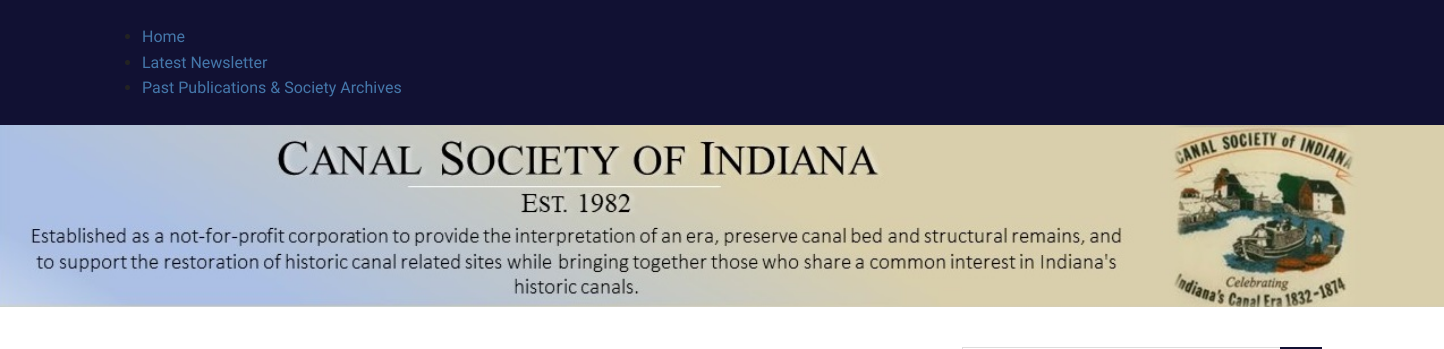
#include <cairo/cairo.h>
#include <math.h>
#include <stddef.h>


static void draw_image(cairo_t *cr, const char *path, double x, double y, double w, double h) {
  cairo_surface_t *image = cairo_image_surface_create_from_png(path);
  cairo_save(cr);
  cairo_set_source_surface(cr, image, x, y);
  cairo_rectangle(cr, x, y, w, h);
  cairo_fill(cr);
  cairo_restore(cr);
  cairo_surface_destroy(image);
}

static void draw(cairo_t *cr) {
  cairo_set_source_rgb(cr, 1, 1, 1);
  cairo_paint(cr);
  cairo_set_source_rgb(cr, 17 / 255.0, 17 / 255.0, 51 / 255.0);
  cairo_rectangle(cr, 0, 0, 1444, 125);
  cairo_fill(cr);
  cairo_set_source_rgb(cr, 34 / 255.0, 34 / 255.0, 34 / 255.0);
  cairo_arc(cr, 127.5, 36.5, 2.5, 0, 2 * M_PI);
  cairo_fill(cr);
  cairo_arc(cr, 127.5, 62.5, 2.5, 0, 2 * M_PI);
  cairo_fill(cr);
  cairo_arc(cr, 127.5, 87.5, 2.5, 0, 2 * M_PI);
  cairo_fill(cr);
  draw_image(cr, "images/1.png", 0, 125, 1444, 182);
  cairo_rectangle(cr, 962.5, 347.5, 318, 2);
  cairo_set_source_rgb(cr, 221 / 255.0, 221 / 255.0, 221 / 255.0);
  cairo_set_line_width(cr, 1);
  cairo_stroke(cr);
  cairo_set_source_rgb(cr, 17 / 255.0, 17 / 255.0, 51 / 255.0);
  cairo_rectangle(cr, 1280, 347, 42, 2);
  cairo_fill(cr);
  cairo_select_font_face(cr, "Roboto", CAIRO_FONT_SLANT_NORMAL, CAIRO_FONT_WEIGHT_NORMAL);
  cairo_set_font_size(cr, 16);
  cairo_set_source_rgb(cr, 68 / 255.0, 119 / 255.0, 170 / 255.0);
  cairo_move_to(cr, 142, 42);
  cairo_show_text(cr, "Home");
  cairo_move_to(cr, 142, 68);
  cairo_show_text(cr, "Latest Newsletter");
  cairo_move_to(cr, 142, 93);
  cairo_show_text(cr, "Past Publications & Society Archives");
}

int main(void) {
  cairo_surface_t *surface = cairo_image_surface_create(CAIRO_FORMAT_RGB24, 1444, 349);
  cairo_t *cr = cairo_create(surface);
  cairo_font_options_t *options = cairo_font_options_create();
  cairo_font_options_set_hint_metrics(options, CAIRO_HINT_METRICS_OFF);
  cairo_font_options_set_hint_style(options, CAIRO_HINT_STYLE_NONE);
  cairo_set_font_options(cr, options);
  cairo_set_miter_limit(cr, 4);
  draw(cr);
  cairo_surface_write_to_png(surface, "out.png");
  cairo_font_options_destroy(options);
  cairo_destroy(cr);
  cairo_surface_destroy(surface);
  return 0;
}
